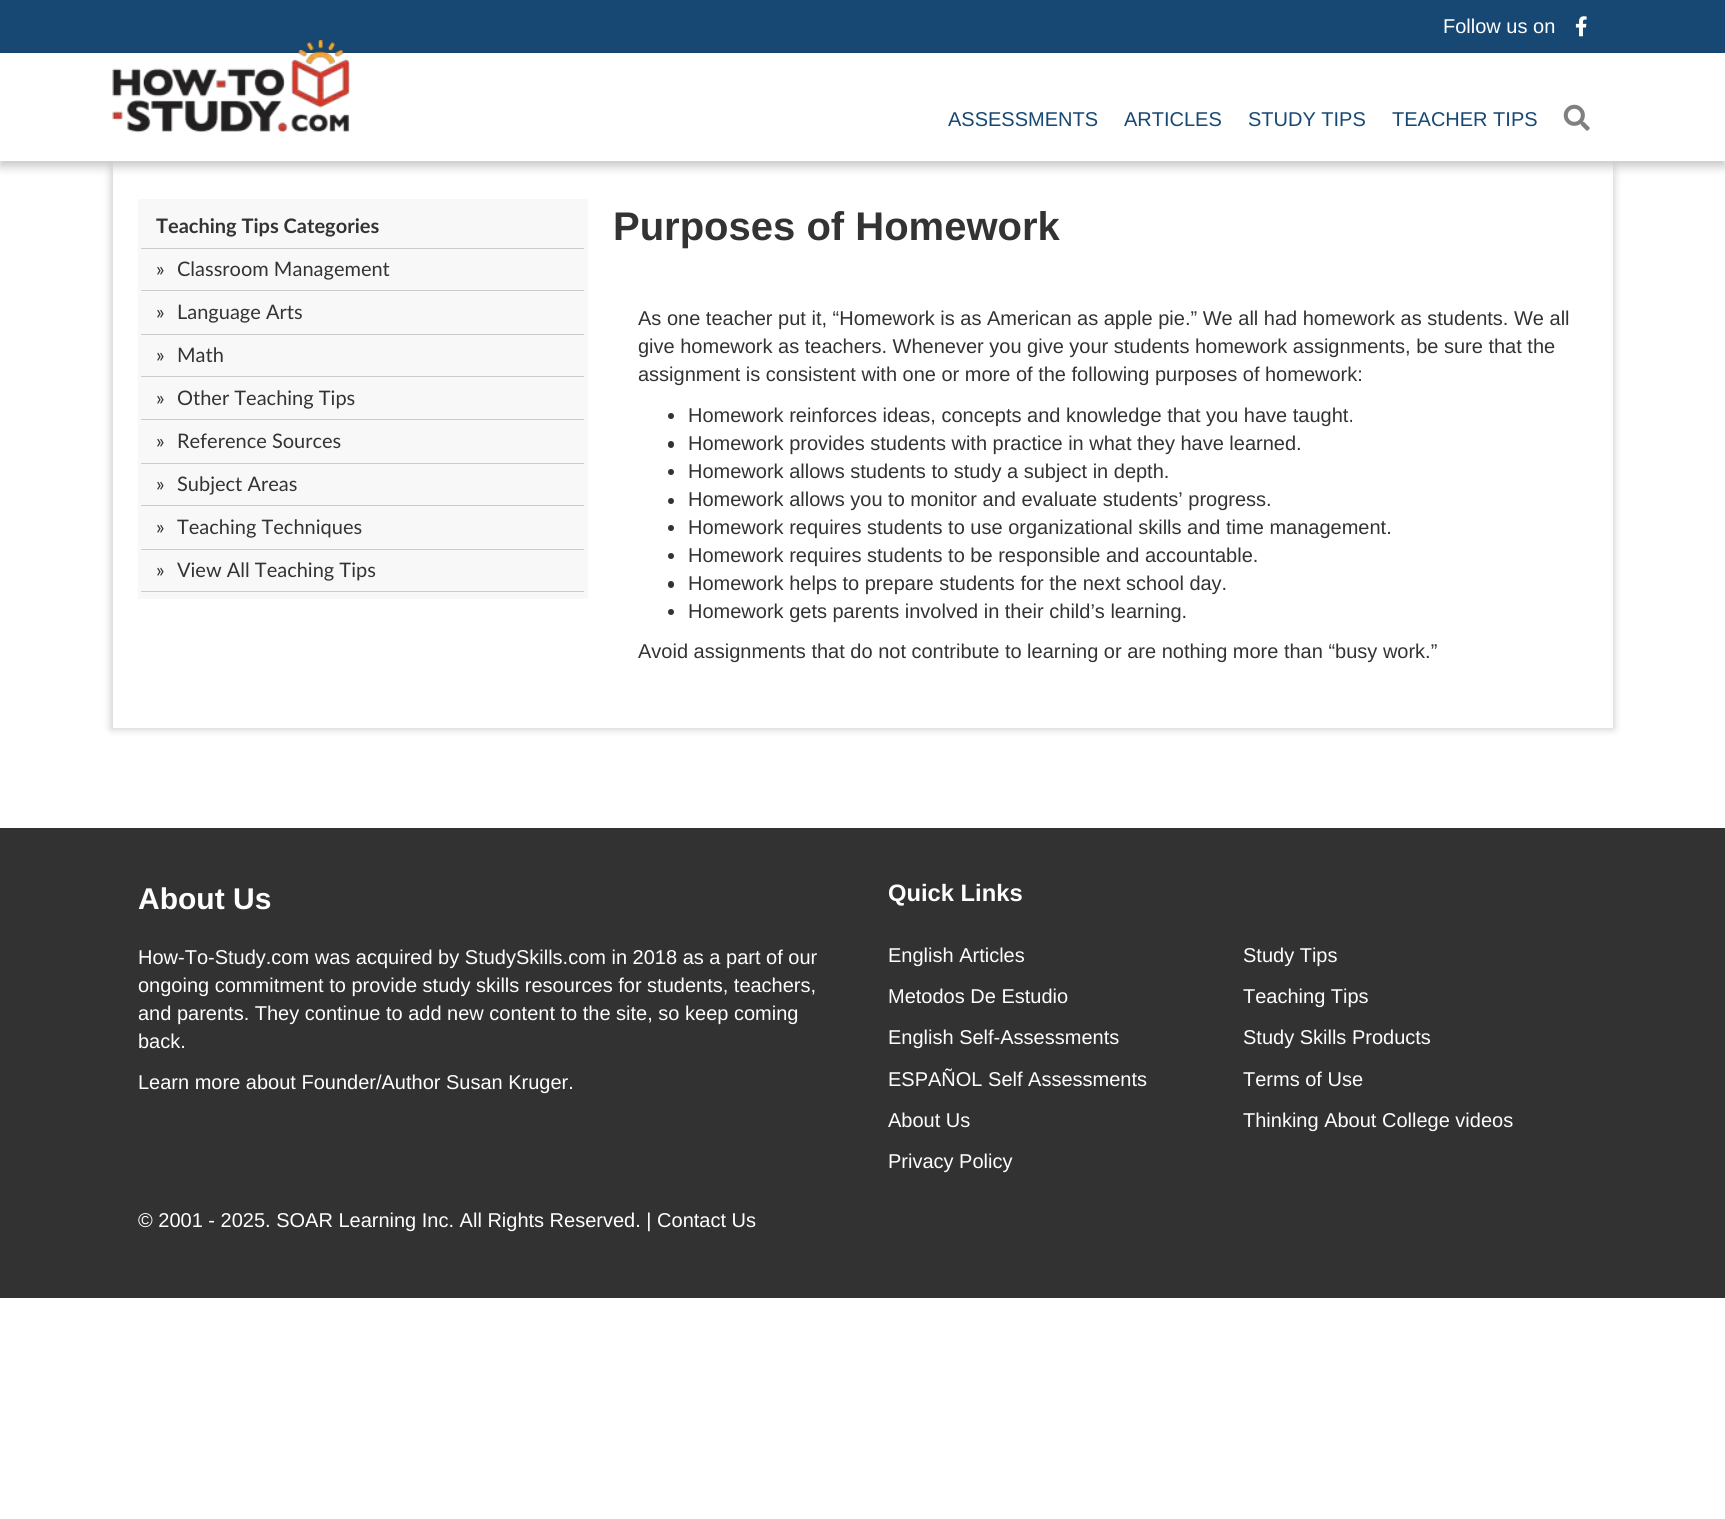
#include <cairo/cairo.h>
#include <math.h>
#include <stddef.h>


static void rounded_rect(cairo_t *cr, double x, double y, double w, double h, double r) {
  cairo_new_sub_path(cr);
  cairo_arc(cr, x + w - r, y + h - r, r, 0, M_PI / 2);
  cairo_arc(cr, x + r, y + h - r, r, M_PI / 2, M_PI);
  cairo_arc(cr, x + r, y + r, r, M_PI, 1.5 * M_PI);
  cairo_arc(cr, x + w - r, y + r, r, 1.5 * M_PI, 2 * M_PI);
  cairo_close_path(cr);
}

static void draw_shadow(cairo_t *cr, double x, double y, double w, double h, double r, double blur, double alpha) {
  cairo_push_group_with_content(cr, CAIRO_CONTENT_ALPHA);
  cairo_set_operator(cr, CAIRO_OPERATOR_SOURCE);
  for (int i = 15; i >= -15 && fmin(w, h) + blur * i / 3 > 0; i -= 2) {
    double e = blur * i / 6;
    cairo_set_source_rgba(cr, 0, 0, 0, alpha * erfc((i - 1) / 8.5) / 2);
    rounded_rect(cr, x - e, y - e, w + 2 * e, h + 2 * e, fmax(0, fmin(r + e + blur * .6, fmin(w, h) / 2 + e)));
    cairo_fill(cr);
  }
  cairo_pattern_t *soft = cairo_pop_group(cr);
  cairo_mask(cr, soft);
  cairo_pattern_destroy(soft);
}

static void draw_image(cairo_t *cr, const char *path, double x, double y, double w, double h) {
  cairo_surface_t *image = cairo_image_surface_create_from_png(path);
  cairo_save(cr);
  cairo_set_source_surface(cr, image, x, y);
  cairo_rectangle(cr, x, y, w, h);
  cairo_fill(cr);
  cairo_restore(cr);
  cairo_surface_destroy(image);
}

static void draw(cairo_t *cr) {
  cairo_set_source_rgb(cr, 1, 1, 1);
  cairo_paint(cr);
  cairo_set_source_rgb(cr, 23 / 255.0, 72 / 255.0, 115 / 255.0);
  cairo_rectangle(cr, 0, 0, 1725, 53);
  cairo_fill(cr);
  draw_image(cr, "images/1.png", 1575, 16, 12, 21);
  cairo_set_source_rgb(cr, 0, 0, 0);
  draw_shadow(cr, 0, 58, 1725, 108, 0, 5.5, 0.24);
  cairo_save(cr);
  cairo_set_fill_rule(cr, CAIRO_FILL_RULE_EVEN_ODD);
  cairo_new_path(cr);
  cairo_move_to(cr, 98, 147);
  cairo_line_to(cr, 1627, 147);
  cairo_line_to(cr, 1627, 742);
  cairo_line_to(cr, 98, 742);
  cairo_close_path(cr);
  cairo_move_to(cr, 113, 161);
  cairo_line_to(cr, 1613, 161);
  cairo_line_to(cr, 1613, 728);
  cairo_line_to(cr, 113, 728);
  cairo_close_path(cr);
  cairo_clip(cr);
  cairo_set_source_rgb(cr, 204 / 255.0, 204 / 255.0, 204 / 255.0);
  draw_shadow(cr, 111, 160, 1503, 569, 0, 4, 1);
  cairo_restore(cr);
  cairo_set_source_rgb(cr, 1, 1, 1);
  cairo_rectangle(cr, 0, 53, 1725, 108);
  cairo_fill(cr);
  draw_image(cr, "images/2.png", 112, 40, 238, 93);
  draw_image(cr, "images/3.png", 1563, 104, 27, 27);
  cairo_set_source_rgb(cr, 248 / 255.0, 248 / 255.0, 248 / 255.0);
  cairo_rectangle(cr, 138, 199, 450, 400);
  cairo_fill(cr);
  cairo_set_source_rgb(cr, 204 / 255.0, 204 / 255.0, 204 / 255.0);
  cairo_rectangle(cr, 141, 248, 443, 1);
  cairo_fill(cr);
  cairo_rectangle(cr, 141, 290, 443, 1);
  cairo_fill(cr);
  cairo_rectangle(cr, 141, 334, 443, 1);
  cairo_fill(cr);
  cairo_rectangle(cr, 141, 376, 443, 1);
  cairo_fill(cr);
  cairo_rectangle(cr, 141, 419, 443, 1);
  cairo_fill(cr);
  cairo_rectangle(cr, 141, 463, 443, 1);
  cairo_fill(cr);
  cairo_rectangle(cr, 141, 505, 443, 1);
  cairo_fill(cr);
  cairo_rectangle(cr, 141, 549, 443, 1);
  cairo_fill(cr);
  cairo_rectangle(cr, 141, 591, 443, 1);
  cairo_fill(cr);
  cairo_set_source_rgb(cr, 51 / 255.0, 51 / 255.0, 51 / 255.0);
  cairo_arc(cr, 671, 416, 3, 0, 2 * M_PI);
  cairo_fill(cr);
  rounded_rect(cr, 668, 441, 6, 7, 3);
  cairo_fill(cr);
  cairo_arc(cr, 671, 472, 3, 0, 2 * M_PI);
  cairo_fill(cr);
  cairo_arc(cr, 671, 501, 3, 0, 2 * M_PI);
  cairo_fill(cr);
  cairo_arc(cr, 671, 528, 3, 0, 2 * M_PI);
  cairo_fill(cr);
  cairo_arc(cr, 671, 556, 3, 0, 2 * M_PI);
  cairo_fill(cr);
  rounded_rect(cr, 668, 581, 6, 7, 3);
  cairo_fill(cr);
  cairo_arc(cr, 671, 612, 3, 0, 2 * M_PI);
  cairo_fill(cr);
  cairo_set_source_rgb(cr, 50 / 255.0, 50 / 255.0, 50 / 255.0);
  cairo_rectangle(cr, 0, 828, 1725, 470);
  cairo_fill(cr);
  cairo_select_font_face(cr, "Liberation Sans", CAIRO_FONT_SLANT_NORMAL, CAIRO_FONT_WEIGHT_NORMAL);
  cairo_set_font_size(cr, 20);
  cairo_set_source_rgb(cr, 1, 1, 1);
  cairo_move_to(cr, 1443, 33);
  cairo_show_text(cr, "Follow us on");
  cairo_set_source_rgb(cr, 23 / 255.0, 72 / 255.0, 115 / 255.0);
  cairo_move_to(cr, 948, 126);
  cairo_show_text(cr, "ASSESSMENTS");
  cairo_move_to(cr, 1124, 126);
  cairo_show_text(cr, "ARTICLES");
  cairo_move_to(cr, 1248, 126);
  cairo_show_text(cr, "STUDY TIPS");
  cairo_move_to(cr, 1392, 126);
  cairo_show_text(cr, "TEACHER TIPS");
  cairo_select_font_face(cr, "Lato", CAIRO_FONT_SLANT_NORMAL, CAIRO_FONT_WEIGHT_BOLD);
  cairo_set_source_rgb(cr, 51 / 255.0, 51 / 255.0, 51 / 255.0);
  cairo_move_to(cr, 156, 233);
  cairo_show_text(cr, "Teaching Tips Categories");
  cairo_select_font_face(cr, "Lato", CAIRO_FONT_SLANT_NORMAL, CAIRO_FONT_WEIGHT_NORMAL);
  cairo_move_to(cr, 156, 276);
  cairo_show_text(cr, "»");
  cairo_move_to(cr, 177, 276);
  cairo_show_text(cr, "Classroom Management");
  cairo_move_to(cr, 156, 319);
  cairo_show_text(cr, "»");
  cairo_move_to(cr, 177, 319);
  cairo_show_text(cr, "Language Arts");
  cairo_move_to(cr, 156, 362);
  cairo_show_text(cr, "»");
  cairo_move_to(cr, 177, 362);
  cairo_show_text(cr, "Math");
  cairo_move_to(cr, 156, 405);
  cairo_show_text(cr, "»");
  cairo_move_to(cr, 177, 405);
  cairo_show_text(cr, "Other Teaching Tips");
  cairo_move_to(cr, 156, 448);
  cairo_show_text(cr, "»");
  cairo_move_to(cr, 177, 448);
  cairo_show_text(cr, "Reference Sources");
  cairo_move_to(cr, 156, 491);
  cairo_show_text(cr, "»");
  cairo_move_to(cr, 177, 491);
  cairo_show_text(cr, "Subject Areas");
  cairo_move_to(cr, 156, 534);
  cairo_show_text(cr, "»");
  cairo_move_to(cr, 177, 534);
  cairo_show_text(cr, "Teaching Techniques");
  cairo_move_to(cr, 156, 577);
  cairo_show_text(cr, "»");
  cairo_move_to(cr, 177, 577);
  cairo_show_text(cr, "View All Teaching Tips");
  cairo_select_font_face(cr, "Liberation Sans", CAIRO_FONT_SLANT_NORMAL, CAIRO_FONT_WEIGHT_BOLD);
  cairo_set_font_size(cr, 40);
  cairo_move_to(cr, 613, 240);
  cairo_show_text(cr, "Purposes of Homework");
  cairo_select_font_face(cr, "Liberation Sans", CAIRO_FONT_SLANT_NORMAL, CAIRO_FONT_WEIGHT_NORMAL);
  cairo_set_font_size(cr, 20);
  cairo_move_to(cr, 638, 325);
  cairo_show_text(cr, "As one teacher put it, “Homework is as American as apple pie.” We all had homework as students. We all");
  cairo_move_to(cr, 638, 353);
  cairo_show_text(cr, "give homework as teachers. Whenever you give your students homework assignments, be sure that the");
  cairo_move_to(cr, 638, 381);
  cairo_show_text(cr, "assignment is consistent with one or more of the following purposes of homework:");
  cairo_move_to(cr, 688, 422);
  cairo_show_text(cr, "Homework reinforces ideas, concepts and knowledge that you have taught.");
  cairo_move_to(cr, 688, 450);
  cairo_show_text(cr, "Homework provides students with practice in what they have learned.");
  cairo_move_to(cr, 688, 478);
  cairo_show_text(cr, "Homework allows students to study a subject in depth.");
  cairo_move_to(cr, 688, 506);
  cairo_show_text(cr, "Homework allows you to monitor and evaluate students’ progress.");
  cairo_move_to(cr, 688, 534);
  cairo_show_text(cr, "Homework requires students to use organizational skills and time management.");
  cairo_move_to(cr, 688, 562);
  cairo_show_text(cr, "Homework requires students to be responsible and accountable.");
  cairo_move_to(cr, 688, 590);
  cairo_show_text(cr, "Homework helps to prepare students for the next school day.");
  cairo_move_to(cr, 688, 618);
  cairo_show_text(cr, "Homework gets parents involved in their child’s learning.");
  cairo_move_to(cr, 638, 658);
  cairo_show_text(cr, "Avoid assignments that do not contribute to learning or are nothing more than “busy work.”");
  cairo_select_font_face(cr, "Liberation Sans", CAIRO_FONT_SLANT_NORMAL, CAIRO_FONT_WEIGHT_BOLD);
  cairo_set_font_size(cr, 30);
  cairo_set_source_rgb(cr, 1, 1, 1);
  cairo_move_to(cr, 138, 909);
  cairo_show_text(cr, "About Us");
  cairo_select_font_face(cr, "Liberation Sans", CAIRO_FONT_SLANT_NORMAL, CAIRO_FONT_WEIGHT_NORMAL);
  cairo_set_font_size(cr, 20);
  cairo_move_to(cr, 138, 964);
  cairo_show_text(cr, "How-To-Study.com was acquired by StudySkills.com in 2018 as a part of our");
  cairo_move_to(cr, 138, 992);
  cairo_show_text(cr, "ongoing commitment to provide study skills resources for students, teachers,");
  cairo_move_to(cr, 138, 1020);
  cairo_show_text(cr, "and parents. They continue to add new content to the site, so keep coming");
  cairo_move_to(cr, 138, 1048);
  cairo_show_text(cr, "back.");
  cairo_move_to(cr, 138, 1089);
  cairo_show_text(cr, "Learn more about Founder/Author Susan Kruger.");
  cairo_select_font_face(cr, "Liberation Sans", CAIRO_FONT_SLANT_NORMAL, CAIRO_FONT_WEIGHT_BOLD);
  cairo_set_font_size(cr, 23.75);
  cairo_move_to(cr, 888, 901);
  cairo_show_text(cr, "Quick Links");
  cairo_select_font_face(cr, "Liberation Sans", CAIRO_FONT_SLANT_NORMAL, CAIRO_FONT_WEIGHT_NORMAL);
  cairo_set_font_size(cr, 20);
  cairo_move_to(cr, 888, 962);
  cairo_show_text(cr, "English Articles");
  cairo_move_to(cr, 888, 1003);
  cairo_show_text(cr, "Metodos De Estudio");
  cairo_move_to(cr, 888, 1044);
  cairo_show_text(cr, "English Self-Assessments");
  cairo_move_to(cr, 888, 1086);
  cairo_show_text(cr, "ESPAÑOL Self Assessments");
  cairo_move_to(cr, 888, 1127);
  cairo_show_text(cr, "About Us");
  cairo_move_to(cr, 888, 1168);
  cairo_show_text(cr, "Privacy Policy");
  cairo_move_to(cr, 1243, 962);
  cairo_show_text(cr, "Study Tips");
  cairo_move_to(cr, 1243, 1003);
  cairo_show_text(cr, "Teaching Tips");
  cairo_move_to(cr, 1243, 1044);
  cairo_show_text(cr, "Study Skills Products");
  cairo_move_to(cr, 1243, 1086);
  cairo_show_text(cr, "Terms of Use");
  cairo_move_to(cr, 1243, 1127);
  cairo_show_text(cr, "Thinking About College videos");
  cairo_move_to(cr, 138, 1227);
  cairo_show_text(cr, "© 2001 - 2025. SOAR Learning Inc. All Rights Reserved. | Contact Us");
}

int main(void) {
  cairo_surface_t *surface = cairo_image_surface_create(CAIRO_FORMAT_RGB24, 1725, 1519);
  cairo_t *cr = cairo_create(surface);
  cairo_font_options_t *options = cairo_font_options_create();
  cairo_font_options_set_hint_metrics(options, CAIRO_HINT_METRICS_OFF);
  cairo_font_options_set_hint_style(options, CAIRO_HINT_STYLE_NONE);
  cairo_set_font_options(cr, options);
  cairo_set_miter_limit(cr, 4);
  draw(cr);
  cairo_surface_write_to_png(surface, "out.png");
  cairo_font_options_destroy(options);
  cairo_destroy(cr);
  cairo_surface_destroy(surface);
  return 0;
}
